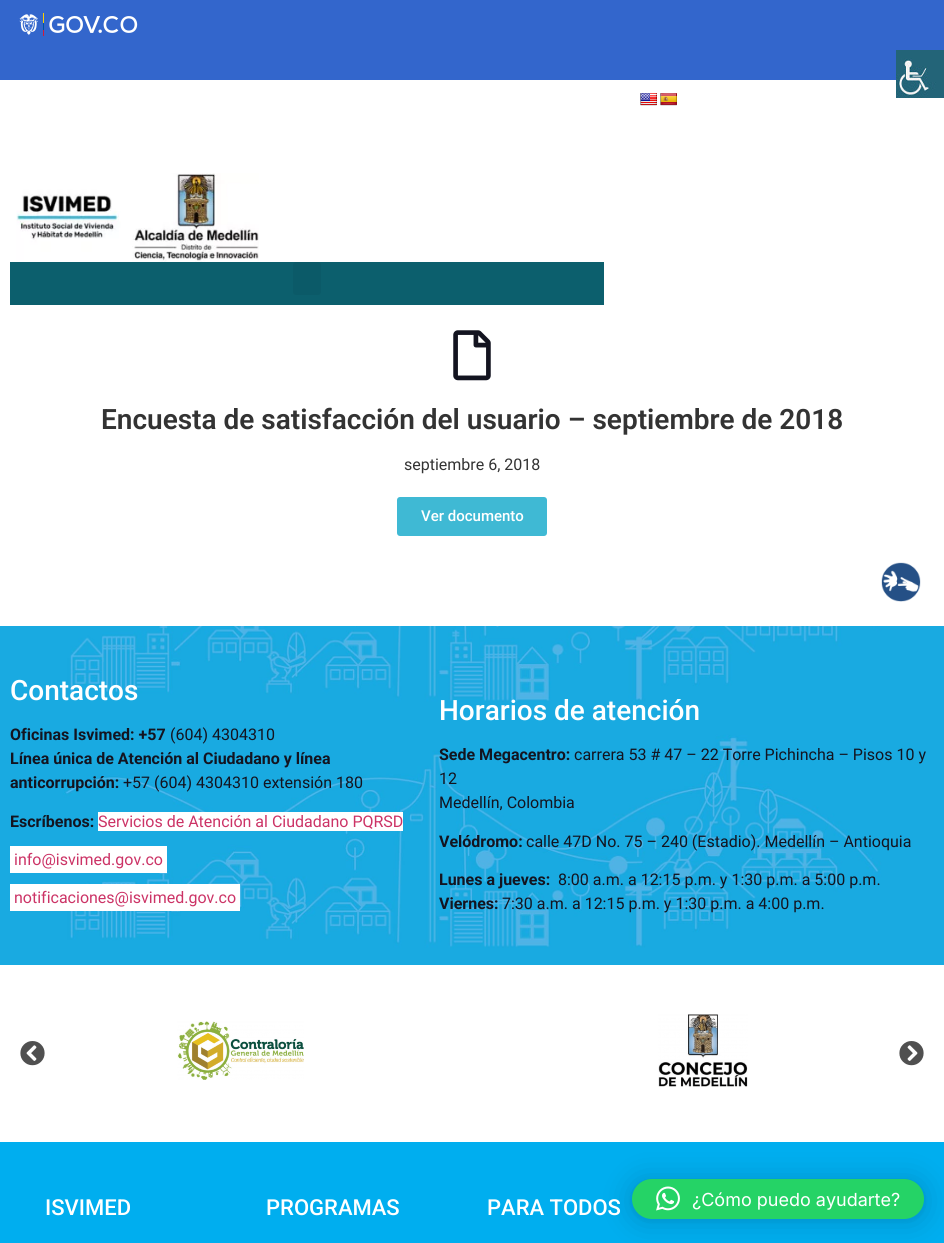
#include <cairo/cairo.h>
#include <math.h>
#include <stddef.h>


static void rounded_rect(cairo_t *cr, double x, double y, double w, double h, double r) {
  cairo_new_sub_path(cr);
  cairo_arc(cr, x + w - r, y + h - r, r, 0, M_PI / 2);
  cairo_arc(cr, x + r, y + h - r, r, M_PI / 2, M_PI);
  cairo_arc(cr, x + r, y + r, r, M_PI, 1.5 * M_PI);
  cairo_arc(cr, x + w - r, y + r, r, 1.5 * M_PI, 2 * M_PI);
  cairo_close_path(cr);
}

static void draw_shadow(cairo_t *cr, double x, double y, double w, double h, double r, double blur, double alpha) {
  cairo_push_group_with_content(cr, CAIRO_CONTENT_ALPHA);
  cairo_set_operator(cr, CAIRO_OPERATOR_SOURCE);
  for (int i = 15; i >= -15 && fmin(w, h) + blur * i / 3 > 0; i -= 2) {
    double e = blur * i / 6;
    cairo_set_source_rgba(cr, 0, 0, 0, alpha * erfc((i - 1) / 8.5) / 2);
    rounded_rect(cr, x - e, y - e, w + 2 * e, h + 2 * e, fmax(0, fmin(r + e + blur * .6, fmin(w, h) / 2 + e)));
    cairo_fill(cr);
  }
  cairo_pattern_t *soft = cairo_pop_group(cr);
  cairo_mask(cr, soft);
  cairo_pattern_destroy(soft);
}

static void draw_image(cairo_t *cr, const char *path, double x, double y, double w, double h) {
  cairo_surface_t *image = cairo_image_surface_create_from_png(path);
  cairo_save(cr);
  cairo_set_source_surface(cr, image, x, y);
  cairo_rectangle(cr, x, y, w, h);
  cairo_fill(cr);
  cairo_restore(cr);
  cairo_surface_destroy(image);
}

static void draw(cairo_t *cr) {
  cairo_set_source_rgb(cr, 1, 1, 1);
  cairo_paint(cr);
  cairo_set_source_rgb(cr, 51 / 255.0, 102 / 255.0, 204 / 255.0);
  cairo_rectangle(cr, 0, 0, 944, 80);
  cairo_fill(cr);
  draw_image(cr, "images/1.png", 19, 13, 119, 23);
  draw_image(cr, "images/2.png", 640, 93, 17, 13);
  draw_image(cr, "images/3.png", 660, 93, 17, 13);
  draw_image(cr, "images/4.png", 16, 173, 243, 89);
  cairo_set_source_rgb(cr, 12 / 255.0, 95 / 255.0, 109 / 255.0);
  cairo_rectangle(cr, 10, 262, 594, 43);
  cairo_fill(cr);
  cairo_set_source_rgb(cr, 11 / 255.0, 90 / 255.0, 104 / 255.0);
  rounded_rect(cr, 293, 262, 28, 33, 3);
  cairo_fill(cr);
  draw_image(cr, "images/5.png", 896, 50, 48, 48);
  draw_image(cr, "images/6.png", 453, 330, 38, 51);
  cairo_set_source_rgb(cr, 63 / 255.0, 185 / 255.0, 212 / 255.0);
  rounded_rect(cr, 397, 497, 150, 39, 3);
  cairo_fill(cr);
  draw_image(cr, "images/7.png", 881, 562, 40, 40);
  draw_image(cr, "images/8.png", 0, 626, 944, 339);
  cairo_set_source_rgb(cr, 1, 1, 1);
  cairo_rectangle(cr, 98, 812, 305, 19);
  cairo_fill(cr);
  cairo_rectangle(cr, 10, 846, 157, 27);
  cairo_fill(cr);
  cairo_rectangle(cr, 10, 884, 230, 27);
  cairo_fill(cr);
  draw_image(cr, "images/9.png", 20, 1041, 25, 25);
  draw_image(cr, "images/10.png", 177, 1021, 127, 59);
  draw_image(cr, "images/11.png", 658, 1014, 90, 73);
  draw_image(cr, "images/12.png", 899, 1041, 25, 25);
  cairo_set_source_rgb(cr, 0, 174 / 255.0, 239 / 255.0);
  cairo_rectangle(cr, 0, 1142, 944, 101);
  cairo_fill(cr);
  cairo_set_source_rgb(cr, 0, 0, 0);
  draw_shadow(cr, 632, 1181, 292, 40, 20, 16, 0.16);
  draw_shadow(cr, 632, 1180, 292, 40, 20, 3, 0.06);
  cairo_set_source_rgb(cr, 37 / 255.0, 211 / 255.0, 102 / 255.0);
  rounded_rect(cr, 632, 1179, 292, 40, 20);
  cairo_fill(cr);
  draw_image(cr, "images/13.png", 656, 1186, 24, 25);
  cairo_select_font_face(cr, "Roboto SemiBold", CAIRO_FONT_SLANT_NORMAL, CAIRO_FONT_WEIGHT_NORMAL);
  cairo_set_font_size(cr, 28);
  cairo_set_source_rgb(cr, 51 / 255.0, 51 / 255.0, 51 / 255.0);
  cairo_move_to(cr, 101, 429);
  cairo_show_text(cr, "Encuesta de satisfacción del usuario – septiembre de 2018");
  cairo_select_font_face(cr, "Roboto", CAIRO_FONT_SLANT_NORMAL, CAIRO_FONT_WEIGHT_NORMAL);
  cairo_set_font_size(cr, 16);
  cairo_move_to(cr, 404, 470);
  cairo_show_text(cr, "septiembre 6, 2018");
  cairo_select_font_face(cr, "Roboto Medium", CAIRO_FONT_SLANT_NORMAL, CAIRO_FONT_WEIGHT_NORMAL);
  cairo_set_font_size(cr, 15);
  cairo_set_source_rgb(cr, 1, 1, 1);
  cairo_move_to(cr, 421, 521);
  cairo_show_text(cr, "Ver documento");
  cairo_set_font_size(cr, 28);
  cairo_move_to(cr, 10, 700);
  cairo_show_text(cr, "Contactos");
  cairo_select_font_face(cr, "Roboto", CAIRO_FONT_SLANT_NORMAL, CAIRO_FONT_WEIGHT_BOLD);
  cairo_set_font_size(cr, 16);
  cairo_set_source_rgb(cr, 19 / 255.0, 20 / 255.0, 32 / 255.0);
  cairo_move_to(cr, 10, 740);
  cairo_show_text(cr, "Oficinas Isvimed: +57");
  cairo_select_font_face(cr, "Roboto", CAIRO_FONT_SLANT_NORMAL, CAIRO_FONT_WEIGHT_NORMAL);
  cairo_move_to(cr, 170, 740);
  cairo_show_text(cr, "(604) 4304310");
  cairo_select_font_face(cr, "Roboto", CAIRO_FONT_SLANT_NORMAL, CAIRO_FONT_WEIGHT_BOLD);
  cairo_move_to(cr, 10, 764);
  cairo_show_text(cr, "Línea única de Atención al Ciudadano y línea");
  cairo_move_to(cr, 10, 788);
  cairo_show_text(cr, "anticorrupción:");
  cairo_select_font_face(cr, "Roboto", CAIRO_FONT_SLANT_NORMAL, CAIRO_FONT_WEIGHT_NORMAL);
  cairo_move_to(cr, 123, 788);
  cairo_show_text(cr, "+57 (604) 4304310 extensión 180");
  cairo_select_font_face(cr, "Roboto", CAIRO_FONT_SLANT_NORMAL, CAIRO_FONT_WEIGHT_BOLD);
  cairo_move_to(cr, 10, 827);
  cairo_show_text(cr, "Escríbenos:");
  cairo_select_font_face(cr, "Roboto", CAIRO_FONT_SLANT_NORMAL, CAIRO_FONT_WEIGHT_NORMAL);
  cairo_set_source_rgb(cr, 204 / 255.0, 51 / 255.0, 102 / 255.0);
  cairo_move_to(cr, 98, 827);
  cairo_show_text(cr, "Servicios de Atención al Ciudadano PQRSD");
  cairo_move_to(cr, 14, 865);
  cairo_show_text(cr, "info@isvimed.gov.co");
  cairo_move_to(cr, 14, 903);
  cairo_show_text(cr, "notificaciones@isvimed.gov.co");
  cairo_select_font_face(cr, "Roboto Medium", CAIRO_FONT_SLANT_NORMAL, CAIRO_FONT_WEIGHT_NORMAL);
  cairo_set_font_size(cr, 28);
  cairo_set_source_rgb(cr, 1, 1, 1);
  cairo_move_to(cr, 439, 720);
  cairo_show_text(cr, "Horarios de atención");
  cairo_select_font_face(cr, "Roboto", CAIRO_FONT_SLANT_NORMAL, CAIRO_FONT_WEIGHT_BOLD);
  cairo_set_font_size(cr, 16);
  cairo_set_source_rgb(cr, 19 / 255.0, 20 / 255.0, 32 / 255.0);
  cairo_move_to(cr, 439, 760);
  cairo_show_text(cr, "Sede Megacentro:");
  cairo_select_font_face(cr, "Roboto", CAIRO_FONT_SLANT_NORMAL, CAIRO_FONT_WEIGHT_NORMAL);
  cairo_move_to(cr, 574, 760);
  cairo_show_text(cr, "carrera 53 # 47 – 22 Torre Pichincha – Pisos 10 y");
  cairo_move_to(cr, 439, 784);
  cairo_show_text(cr, "12");
  cairo_move_to(cr, 439, 808);
  cairo_show_text(cr, "Medellín, Colombia");
  cairo_select_font_face(cr, "Roboto", CAIRO_FONT_SLANT_NORMAL, CAIRO_FONT_WEIGHT_BOLD);
  cairo_move_to(cr, 439, 847);
  cairo_show_text(cr, "Velódromo:");
  cairo_select_font_face(cr, "Roboto", CAIRO_FONT_SLANT_NORMAL, CAIRO_FONT_WEIGHT_NORMAL);
  cairo_move_to(cr, 526, 847);
  cairo_show_text(cr, "calle 47D No. 75 – 240 (Estadio). Medellín – Antioquia");
  cairo_select_font_face(cr, "Roboto", CAIRO_FONT_SLANT_NORMAL, CAIRO_FONT_WEIGHT_BOLD);
  cairo_move_to(cr, 439, 885);
  cairo_show_text(cr, "Lunes a jueves:");
  cairo_select_font_face(cr, "Roboto", CAIRO_FONT_SLANT_NORMAL, CAIRO_FONT_WEIGHT_NORMAL);
  cairo_move_to(cr, 558, 885);
  cairo_show_text(cr, "8:00 a.m. a 12:15 p.m. y 1:30 p.m. a 5:00 p.m.");
  cairo_select_font_face(cr, "Roboto", CAIRO_FONT_SLANT_NORMAL, CAIRO_FONT_WEIGHT_BOLD);
  cairo_move_to(cr, 439, 909);
  cairo_show_text(cr, "Viernes:");
  cairo_select_font_face(cr, "Roboto", CAIRO_FONT_SLANT_NORMAL, CAIRO_FONT_WEIGHT_NORMAL);
  cairo_move_to(cr, 502, 909);
  cairo_show_text(cr, "7:30 a.m. a 12:15 p.m. y 1:30 p.m. a 4:00 p.m.");
  cairo_select_font_face(cr, "Roboto Medium", CAIRO_FONT_SLANT_NORMAL, CAIRO_FONT_WEIGHT_NORMAL);
  cairo_set_font_size(cr, 22);
  cairo_set_source_rgb(cr, 1, 1, 1);
  cairo_move_to(cr, 45, 1215);
  cairo_show_text(cr, "ISVIMED");
  cairo_move_to(cr, 266, 1215);
  cairo_show_text(cr, "PROGRAMAS");
  cairo_move_to(cr, 487, 1215);
  cairo_show_text(cr, "PARA TODOS");
  cairo_select_font_face(cr, "Inter", CAIRO_FONT_SLANT_NORMAL, CAIRO_FONT_WEIGHT_NORMAL);
  cairo_set_font_size(cr, 18);
  cairo_move_to(cr, 692, 1206);
  cairo_show_text(cr, "¿Cómo puedo ayudarte?");
}

int main(void) {
  cairo_surface_t *surface = cairo_image_surface_create(CAIRO_FORMAT_RGB24, 944, 1243);
  cairo_t *cr = cairo_create(surface);
  cairo_font_options_t *options = cairo_font_options_create();
  cairo_font_options_set_hint_metrics(options, CAIRO_HINT_METRICS_OFF);
  cairo_font_options_set_hint_style(options, CAIRO_HINT_STYLE_NONE);
  cairo_set_font_options(cr, options);
  cairo_set_miter_limit(cr, 4);
  draw(cr);
  cairo_surface_write_to_png(surface, "out.png");
  cairo_font_options_destroy(options);
  cairo_destroy(cr);
  cairo_surface_destroy(surface);
  return 0;
}
